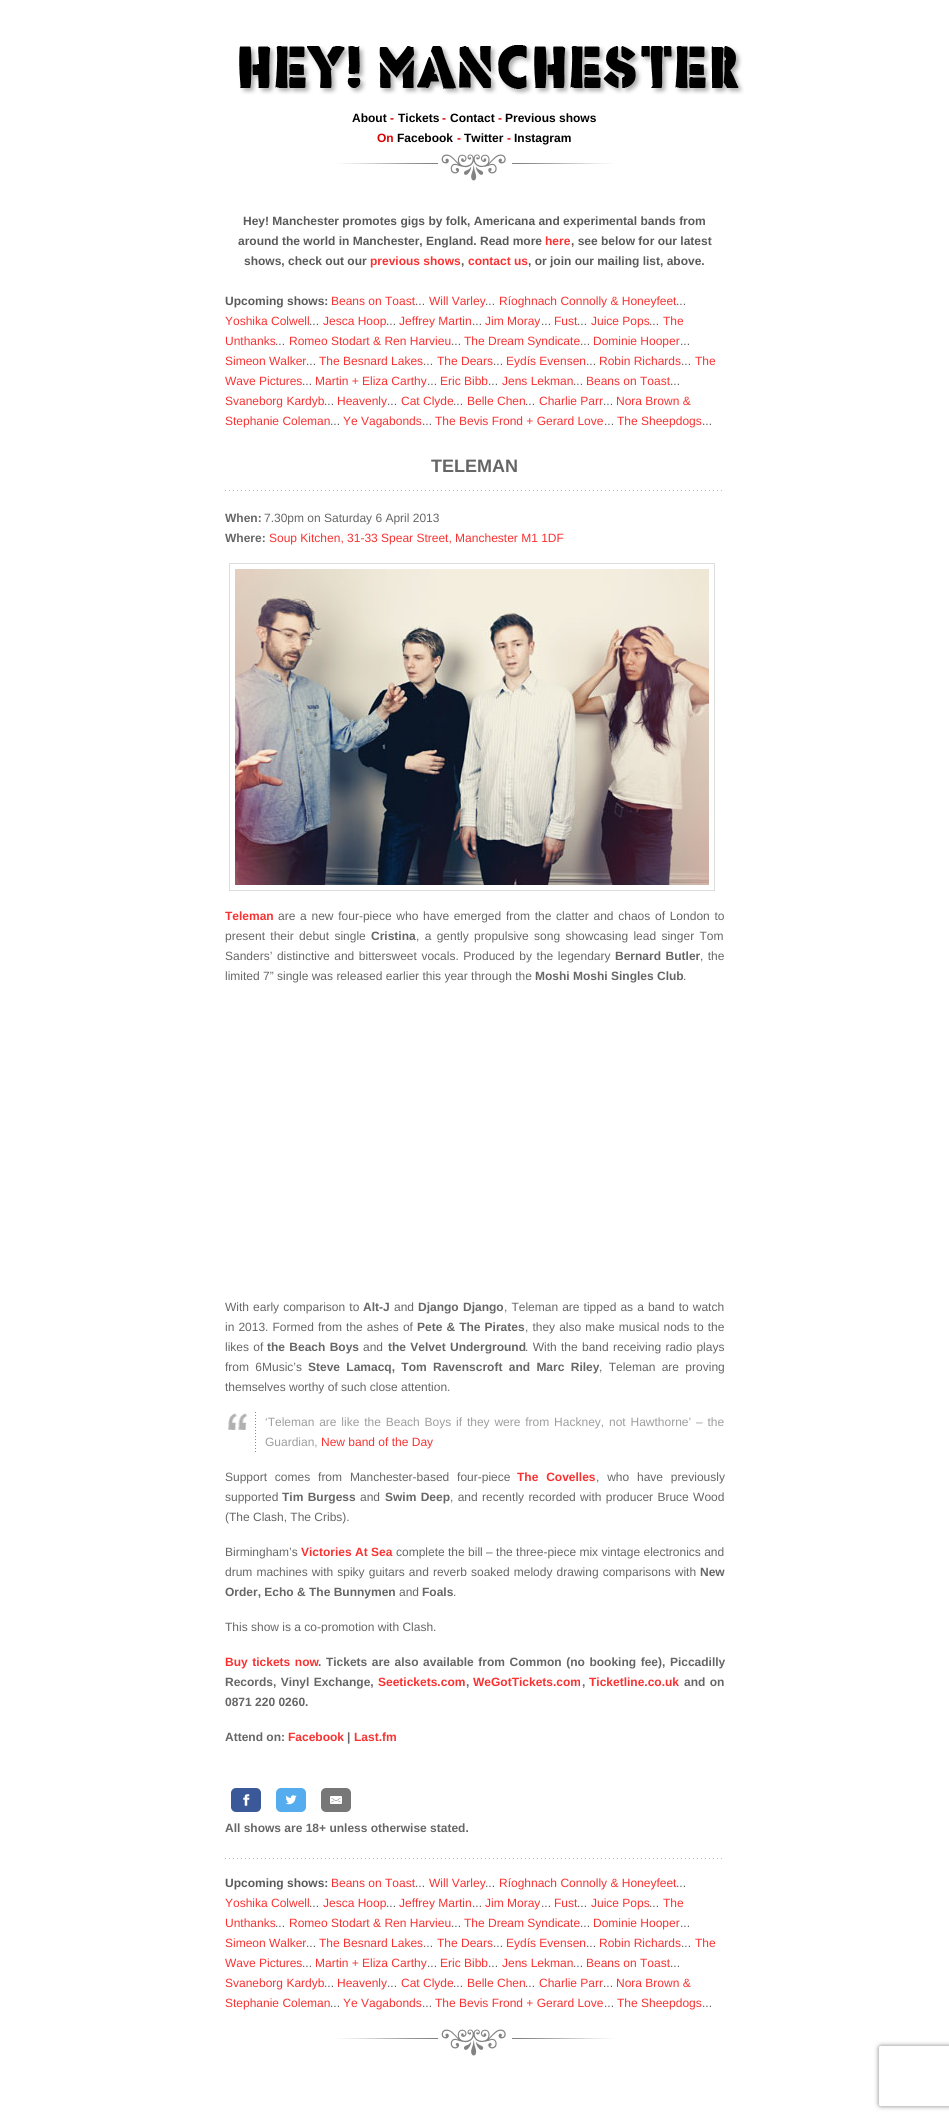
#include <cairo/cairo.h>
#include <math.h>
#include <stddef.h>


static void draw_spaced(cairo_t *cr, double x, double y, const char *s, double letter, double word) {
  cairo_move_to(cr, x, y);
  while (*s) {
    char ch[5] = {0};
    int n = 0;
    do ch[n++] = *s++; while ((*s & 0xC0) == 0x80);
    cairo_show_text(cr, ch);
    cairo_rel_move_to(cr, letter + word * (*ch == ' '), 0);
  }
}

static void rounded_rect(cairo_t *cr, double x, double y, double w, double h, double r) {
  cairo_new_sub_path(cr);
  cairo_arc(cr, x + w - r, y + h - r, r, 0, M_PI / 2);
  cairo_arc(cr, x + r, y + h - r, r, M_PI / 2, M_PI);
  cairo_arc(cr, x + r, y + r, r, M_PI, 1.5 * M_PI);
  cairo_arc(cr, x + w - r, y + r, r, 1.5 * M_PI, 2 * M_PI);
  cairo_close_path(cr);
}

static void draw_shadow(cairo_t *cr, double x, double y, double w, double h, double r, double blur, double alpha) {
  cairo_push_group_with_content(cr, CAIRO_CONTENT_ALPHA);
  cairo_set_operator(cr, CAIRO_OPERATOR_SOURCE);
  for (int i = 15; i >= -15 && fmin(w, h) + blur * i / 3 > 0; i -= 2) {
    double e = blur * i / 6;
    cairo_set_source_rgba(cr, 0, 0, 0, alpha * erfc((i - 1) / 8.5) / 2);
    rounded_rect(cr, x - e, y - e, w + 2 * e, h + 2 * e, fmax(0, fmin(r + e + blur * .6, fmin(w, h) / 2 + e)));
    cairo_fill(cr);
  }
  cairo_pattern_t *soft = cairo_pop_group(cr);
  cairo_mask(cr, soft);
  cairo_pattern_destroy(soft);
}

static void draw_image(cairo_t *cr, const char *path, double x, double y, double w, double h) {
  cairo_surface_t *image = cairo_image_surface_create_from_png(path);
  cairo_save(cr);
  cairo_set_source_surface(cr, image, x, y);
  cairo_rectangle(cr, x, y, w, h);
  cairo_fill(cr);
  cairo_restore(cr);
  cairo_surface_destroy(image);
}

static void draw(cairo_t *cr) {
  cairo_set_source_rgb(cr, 1, 1, 1);
  cairo_paint(cr);
  draw_image(cr, "images/1.png", 337, 154, 276, 27);
  draw_image(cr, "images/2.png", 239, 45, 505, 50);
  draw_image(cr, "images/3.png", 225, 490, 497, 1);
  cairo_rectangle(cr, 229.5, 563.5, 485, 327);
  cairo_set_source_rgb(cr, 221 / 255.0, 221 / 255.0, 221 / 255.0);
  cairo_set_line_width(cr, 1);
  cairo_stroke(cr);
  draw_image(cr, "images/4.png", 235, 569, 474, 316);
  draw_image(cr, "images/5.png", 228, 1412, 28, 40);
  cairo_set_source_rgb(cr, 59 / 255.0, 89 / 255.0, 152 / 255.0);
  rounded_rect(cr, 231, 1788, 30, 24, 5);
  cairo_fill(cr);
  draw_image(cr, "images/6.png", 243, 1794, 7, 12);
  cairo_set_source_rgb(cr, 85 / 255.0, 172 / 255.0, 238 / 255.0);
  rounded_rect(cr, 276, 1788, 30, 24, 5);
  cairo_fill(cr);
  draw_image(cr, "images/7.png", 285, 1795, 12, 10);
  cairo_set_source_rgb(cr, 119 / 255.0, 119 / 255.0, 119 / 255.0);
  rounded_rect(cr, 321, 1788, 30, 24, 5);
  cairo_fill(cr);
  draw_image(cr, "images/8.png", 330, 1796, 12, 8);
  draw_image(cr, "images/3.png", 225, 1858, 497, 1);
  draw_image(cr, "images/1.png", 337, 2029, 276, 27);
  cairo_save(cr);
  cairo_set_fill_rule(cr, CAIRO_FILL_RULE_EVEN_ODD);
  cairo_new_path(cr);
  cairo_move_to(cr, 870, 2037);
  cairo_line_to(cr, 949, 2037);
  cairo_line_to(cr, 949, 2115);
  cairo_line_to(cr, 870, 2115);
  cairo_close_path(cr);
  cairo_move_to(cr, 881, 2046);
  cairo_line_to(cr, 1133, 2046);
  cairo_curve_to(cr, 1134, 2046, 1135, 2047, 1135, 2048);
  cairo_line_to(cr, 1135, 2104);
  cairo_curve_to(cr, 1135, 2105, 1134, 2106, 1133, 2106);
  cairo_line_to(cr, 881, 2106);
  cairo_curve_to(cr, 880, 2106, 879, 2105, 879, 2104);
  cairo_line_to(cr, 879, 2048);
  cairo_curve_to(cr, 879, 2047, 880, 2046, 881, 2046);
  cairo_close_path(cr);
  cairo_clip(cr);
  cairo_set_source_rgb(cr, 128 / 255.0, 128 / 255.0, 128 / 255.0);
  draw_shadow(cr, 879, 2046, 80, 60, 2, 2.5, 1);
  cairo_restore(cr);
  cairo_select_font_face(cr, "Liberation Sans", CAIRO_FONT_SLANT_NORMAL, CAIRO_FONT_WEIGHT_BOLD);
  cairo_set_font_size(cr, 12);
  cairo_set_source_rgb(cr, 0, 0, 0);
  cairo_move_to(cr, 352, 122);
  cairo_show_text(cr, "About");
  cairo_set_source_rgb(cr, 216 / 255.0, 3 / 255.0, 3 / 255.0);
  cairo_move_to(cr, 390, 122);
  cairo_show_text(cr, "-");
  cairo_set_source_rgb(cr, 0, 0, 0);
  cairo_move_to(cr, 398, 122);
  cairo_show_text(cr, "Tickets");
  cairo_set_source_rgb(cr, 216 / 255.0, 3 / 255.0, 3 / 255.0);
  cairo_move_to(cr, 442, 122);
  cairo_show_text(cr, "-");
  cairo_set_source_rgb(cr, 0, 0, 0);
  cairo_move_to(cr, 450, 122);
  cairo_show_text(cr, "Contact");
  cairo_set_source_rgb(cr, 216 / 255.0, 3 / 255.0, 3 / 255.0);
  cairo_move_to(cr, 498, 122);
  cairo_show_text(cr, "-");
  cairo_set_source_rgb(cr, 0, 0, 0);
  cairo_move_to(cr, 505, 122);
  cairo_show_text(cr, "Previous shows");
  cairo_set_source_rgb(cr, 216 / 255.0, 3 / 255.0, 3 / 255.0);
  cairo_move_to(cr, 377, 142);
  cairo_show_text(cr, "On");
  cairo_set_source_rgb(cr, 0, 0, 0);
  cairo_move_to(cr, 397, 142);
  cairo_show_text(cr, "Facebook");
  cairo_set_source_rgb(cr, 216 / 255.0, 3 / 255.0, 3 / 255.0);
  cairo_move_to(cr, 457, 142);
  cairo_show_text(cr, "-");
  cairo_set_source_rgb(cr, 0, 0, 0);
  cairo_move_to(cr, 464, 142);
  cairo_show_text(cr, "Twitter");
  cairo_set_source_rgb(cr, 216 / 255.0, 3 / 255.0, 3 / 255.0);
  cairo_move_to(cr, 507, 142);
  cairo_show_text(cr, "-");
  cairo_set_source_rgb(cr, 0, 0, 0);
  cairo_move_to(cr, 514, 142);
  cairo_show_text(cr, "Instagram");
  cairo_set_source_rgb(cr, 90 / 255.0, 90 / 255.0, 90 / 255.0);
  cairo_move_to(cr, 243, 225);
  cairo_show_text(cr, "Hey! Manchester promotes gigs by folk, Americana and experimental bands from");
  cairo_move_to(cr, 238, 245);
  cairo_show_text(cr, "around the world in Manchester, England. Read more");
  cairo_set_source_rgb(cr, 249 / 255.0, 49 / 255.0, 49 / 255.0);
  cairo_move_to(cr, 545, 245);
  cairo_show_text(cr, "here");
  cairo_set_source_rgb(cr, 90 / 255.0, 90 / 255.0, 90 / 255.0);
  cairo_move_to(cr, 571, 245);
  cairo_show_text(cr, ", see below for our latest");
  cairo_move_to(cr, 244, 265);
  cairo_show_text(cr, "shows, check out our");
  cairo_set_source_rgb(cr, 249 / 255.0, 49 / 255.0, 49 / 255.0);
  cairo_move_to(cr, 370, 265);
  cairo_show_text(cr, "previous shows");
  cairo_set_source_rgb(cr, 90 / 255.0, 90 / 255.0, 90 / 255.0);
  cairo_move_to(cr, 461, 265);
  cairo_show_text(cr, ",");
  cairo_set_source_rgb(cr, 249 / 255.0, 49 / 255.0, 49 / 255.0);
  cairo_move_to(cr, 468, 265);
  cairo_show_text(cr, "contact us");
  cairo_set_source_rgb(cr, 90 / 255.0, 90 / 255.0, 90 / 255.0);
  cairo_move_to(cr, 528, 265);
  cairo_show_text(cr, ", or join our mailing list, above.");
  cairo_move_to(cr, 225, 305);
  cairo_show_text(cr, "Upcoming shows:");
  cairo_select_font_face(cr, "Liberation Sans", CAIRO_FONT_SLANT_NORMAL, CAIRO_FONT_WEIGHT_NORMAL);
  cairo_set_source_rgb(cr, 249 / 255.0, 49 / 255.0, 49 / 255.0);
  cairo_move_to(cr, 331, 305);
  cairo_show_text(cr, "Beans on Toast");
  cairo_set_source_rgb(cr, 90 / 255.0, 90 / 255.0, 90 / 255.0);
  cairo_move_to(cr, 415, 305);
  cairo_show_text(cr, "...");
  cairo_set_source_rgb(cr, 249 / 255.0, 49 / 255.0, 49 / 255.0);
  cairo_move_to(cr, 429, 305);
  cairo_show_text(cr, "Will Varley");
  cairo_set_source_rgb(cr, 90 / 255.0, 90 / 255.0, 90 / 255.0);
  cairo_move_to(cr, 485, 305);
  cairo_show_text(cr, "...");
  cairo_set_source_rgb(cr, 249 / 255.0, 49 / 255.0, 49 / 255.0);
  cairo_move_to(cr, 499, 305);
  cairo_show_text(cr, "Ríoghnach Connolly & Honeyfeet");
  cairo_set_source_rgb(cr, 90 / 255.0, 90 / 255.0, 90 / 255.0);
  cairo_move_to(cr, 676, 305);
  cairo_show_text(cr, "...");
  cairo_set_source_rgb(cr, 249 / 255.0, 49 / 255.0, 49 / 255.0);
  cairo_move_to(cr, 225, 325);
  cairo_show_text(cr, "Yoshika Colwell");
  cairo_set_source_rgb(cr, 90 / 255.0, 90 / 255.0, 90 / 255.0);
  cairo_move_to(cr, 309, 325);
  cairo_show_text(cr, "...");
  cairo_set_source_rgb(cr, 249 / 255.0, 49 / 255.0, 49 / 255.0);
  cairo_move_to(cr, 323, 325);
  cairo_show_text(cr, "Jesca Hoop");
  cairo_set_source_rgb(cr, 90 / 255.0, 90 / 255.0, 90 / 255.0);
  cairo_move_to(cr, 386, 325);
  cairo_show_text(cr, "...");
  cairo_set_source_rgb(cr, 249 / 255.0, 49 / 255.0, 49 / 255.0);
  cairo_move_to(cr, 399, 325);
  cairo_show_text(cr, "Jeffrey Martin");
  cairo_set_source_rgb(cr, 90 / 255.0, 90 / 255.0, 90 / 255.0);
  cairo_move_to(cr, 472, 325);
  cairo_show_text(cr, "...");
  cairo_set_source_rgb(cr, 249 / 255.0, 49 / 255.0, 49 / 255.0);
  cairo_move_to(cr, 485, 325);
  cairo_show_text(cr, "Jim Moray");
  cairo_set_source_rgb(cr, 90 / 255.0, 90 / 255.0, 90 / 255.0);
  cairo_move_to(cr, 541, 325);
  cairo_show_text(cr, "...");
  cairo_set_source_rgb(cr, 249 / 255.0, 49 / 255.0, 49 / 255.0);
  cairo_move_to(cr, 554, 325);
  cairo_show_text(cr, "Fust");
  cairo_set_source_rgb(cr, 90 / 255.0, 90 / 255.0, 90 / 255.0);
  cairo_move_to(cr, 577, 325);
  cairo_show_text(cr, "...");
  cairo_set_source_rgb(cr, 249 / 255.0, 49 / 255.0, 49 / 255.0);
  cairo_move_to(cr, 591, 325);
  cairo_show_text(cr, "Juice Pops");
  cairo_set_source_rgb(cr, 90 / 255.0, 90 / 255.0, 90 / 255.0);
  cairo_move_to(cr, 649, 325);
  cairo_show_text(cr, "...");
  cairo_set_source_rgb(cr, 249 / 255.0, 49 / 255.0, 49 / 255.0);
  cairo_move_to(cr, 663, 325);
  cairo_show_text(cr, "The");
  cairo_move_to(cr, 225, 345);
  cairo_show_text(cr, "Unthanks");
  cairo_set_source_rgb(cr, 90 / 255.0, 90 / 255.0, 90 / 255.0);
  cairo_move_to(cr, 275, 345);
  cairo_show_text(cr, "...");
  cairo_set_source_rgb(cr, 249 / 255.0, 49 / 255.0, 49 / 255.0);
  cairo_move_to(cr, 289, 345);
  cairo_show_text(cr, "Romeo Stodart & Ren Harvieu");
  cairo_set_source_rgb(cr, 90 / 255.0, 90 / 255.0, 90 / 255.0);
  cairo_move_to(cr, 451, 345);
  cairo_show_text(cr, "...");
  cairo_set_source_rgb(cr, 249 / 255.0, 49 / 255.0, 49 / 255.0);
  cairo_move_to(cr, 464, 345);
  cairo_show_text(cr, "The Dream Syndicate");
  cairo_set_source_rgb(cr, 90 / 255.0, 90 / 255.0, 90 / 255.0);
  cairo_move_to(cr, 580, 345);
  cairo_show_text(cr, "...");
  cairo_set_source_rgb(cr, 249 / 255.0, 49 / 255.0, 49 / 255.0);
  cairo_move_to(cr, 593, 345);
  cairo_show_text(cr, "Dominie Hooper");
  cairo_set_source_rgb(cr, 90 / 255.0, 90 / 255.0, 90 / 255.0);
  cairo_move_to(cr, 680, 345);
  cairo_show_text(cr, "...");
  cairo_set_source_rgb(cr, 249 / 255.0, 49 / 255.0, 49 / 255.0);
  cairo_move_to(cr, 225, 365);
  cairo_show_text(cr, "Simeon Walker");
  cairo_set_source_rgb(cr, 90 / 255.0, 90 / 255.0, 90 / 255.0);
  cairo_move_to(cr, 306, 365);
  cairo_show_text(cr, "...");
  cairo_set_source_rgb(cr, 249 / 255.0, 49 / 255.0, 49 / 255.0);
  cairo_move_to(cr, 319, 365);
  cairo_show_text(cr, "The Besnard Lakes");
  cairo_set_source_rgb(cr, 90 / 255.0, 90 / 255.0, 90 / 255.0);
  cairo_move_to(cr, 423, 365);
  cairo_show_text(cr, "...");
  cairo_set_source_rgb(cr, 249 / 255.0, 49 / 255.0, 49 / 255.0);
  cairo_move_to(cr, 437, 365);
  cairo_show_text(cr, "The Dears");
  cairo_set_source_rgb(cr, 90 / 255.0, 90 / 255.0, 90 / 255.0);
  cairo_move_to(cr, 493, 365);
  cairo_show_text(cr, "...");
  cairo_set_source_rgb(cr, 249 / 255.0, 49 / 255.0, 49 / 255.0);
  cairo_move_to(cr, 506, 365);
  cairo_show_text(cr, "Eydís Evensen");
  cairo_set_source_rgb(cr, 90 / 255.0, 90 / 255.0, 90 / 255.0);
  cairo_move_to(cr, 586, 365);
  cairo_show_text(cr, "...");
  cairo_set_source_rgb(cr, 249 / 255.0, 49 / 255.0, 49 / 255.0);
  cairo_move_to(cr, 599, 365);
  cairo_show_text(cr, "Robin Richards");
  cairo_set_source_rgb(cr, 90 / 255.0, 90 / 255.0, 90 / 255.0);
  cairo_move_to(cr, 681, 365);
  cairo_show_text(cr, "...");
  cairo_set_source_rgb(cr, 249 / 255.0, 49 / 255.0, 49 / 255.0);
  cairo_move_to(cr, 695, 365);
  cairo_show_text(cr, "The");
  cairo_move_to(cr, 225, 385);
  cairo_show_text(cr, "Wave Pictures");
  cairo_set_source_rgb(cr, 90 / 255.0, 90 / 255.0, 90 / 255.0);
  cairo_move_to(cr, 302, 385);
  cairo_show_text(cr, "...");
  cairo_set_source_rgb(cr, 249 / 255.0, 49 / 255.0, 49 / 255.0);
  cairo_move_to(cr, 315, 385);
  cairo_show_text(cr, "Martin + Eliza Carthy");
  cairo_set_source_rgb(cr, 90 / 255.0, 90 / 255.0, 90 / 255.0);
  cairo_move_to(cr, 427, 385);
  cairo_show_text(cr, "...");
  cairo_set_source_rgb(cr, 249 / 255.0, 49 / 255.0, 49 / 255.0);
  cairo_move_to(cr, 440, 385);
  cairo_show_text(cr, "Eric Bibb");
  cairo_set_source_rgb(cr, 90 / 255.0, 90 / 255.0, 90 / 255.0);
  cairo_move_to(cr, 488, 385);
  cairo_show_text(cr, "...");
  cairo_set_source_rgb(cr, 249 / 255.0, 49 / 255.0, 49 / 255.0);
  cairo_move_to(cr, 502, 385);
  cairo_show_text(cr, "Jens Lekman");
  cairo_set_source_rgb(cr, 90 / 255.0, 90 / 255.0, 90 / 255.0);
  cairo_move_to(cr, 573, 385);
  cairo_show_text(cr, "...");
  cairo_set_source_rgb(cr, 249 / 255.0, 49 / 255.0, 49 / 255.0);
  cairo_move_to(cr, 586, 385);
  cairo_show_text(cr, "Beans on Toast");
  cairo_set_source_rgb(cr, 90 / 255.0, 90 / 255.0, 90 / 255.0);
  cairo_move_to(cr, 670, 385);
  cairo_show_text(cr, "...");
  cairo_set_source_rgb(cr, 249 / 255.0, 49 / 255.0, 49 / 255.0);
  cairo_move_to(cr, 225, 405);
  cairo_show_text(cr, "Svaneborg Kardyb");
  cairo_set_source_rgb(cr, 90 / 255.0, 90 / 255.0, 90 / 255.0);
  cairo_move_to(cr, 324, 405);
  cairo_show_text(cr, "...");
  cairo_set_source_rgb(cr, 249 / 255.0, 49 / 255.0, 49 / 255.0);
  cairo_move_to(cr, 337, 405);
  cairo_show_text(cr, "Heavenly");
  cairo_set_source_rgb(cr, 90 / 255.0, 90 / 255.0, 90 / 255.0);
  cairo_move_to(cr, 387, 405);
  cairo_show_text(cr, "...");
  cairo_set_source_rgb(cr, 249 / 255.0, 49 / 255.0, 49 / 255.0);
  cairo_move_to(cr, 401, 405);
  cairo_show_text(cr, "Cat Clyde");
  cairo_set_source_rgb(cr, 90 / 255.0, 90 / 255.0, 90 / 255.0);
  cairo_move_to(cr, 453, 405);
  cairo_show_text(cr, "...");
  cairo_set_source_rgb(cr, 249 / 255.0, 49 / 255.0, 49 / 255.0);
  cairo_move_to(cr, 467, 405);
  cairo_show_text(cr, "Belle Chen");
  cairo_set_source_rgb(cr, 90 / 255.0, 90 / 255.0, 90 / 255.0);
  cairo_move_to(cr, 525, 405);
  cairo_show_text(cr, "...");
  cairo_set_source_rgb(cr, 249 / 255.0, 49 / 255.0, 49 / 255.0);
  cairo_move_to(cr, 539, 405);
  cairo_show_text(cr, "Charlie Parr");
  cairo_set_source_rgb(cr, 90 / 255.0, 90 / 255.0, 90 / 255.0);
  cairo_move_to(cr, 603, 405);
  cairo_show_text(cr, "...");
  cairo_set_source_rgb(cr, 249 / 255.0, 49 / 255.0, 49 / 255.0);
  cairo_move_to(cr, 616, 405);
  cairo_show_text(cr, "Nora Brown &");
  cairo_move_to(cr, 225, 425);
  cairo_show_text(cr, "Stephanie Coleman");
  cairo_set_source_rgb(cr, 90 / 255.0, 90 / 255.0, 90 / 255.0);
  cairo_move_to(cr, 330, 425);
  cairo_show_text(cr, "...");
  cairo_set_source_rgb(cr, 249 / 255.0, 49 / 255.0, 49 / 255.0);
  cairo_move_to(cr, 343, 425);
  cairo_show_text(cr, "Ye Vagabonds");
  cairo_set_source_rgb(cr, 90 / 255.0, 90 / 255.0, 90 / 255.0);
  cairo_move_to(cr, 422, 425);
  cairo_show_text(cr, "...");
  cairo_set_source_rgb(cr, 249 / 255.0, 49 / 255.0, 49 / 255.0);
  cairo_move_to(cr, 435, 425);
  cairo_show_text(cr, "The Bevis Frond + Gerard Love");
  cairo_set_source_rgb(cr, 90 / 255.0, 90 / 255.0, 90 / 255.0);
  cairo_move_to(cr, 604, 425);
  cairo_show_text(cr, "...");
  cairo_set_source_rgb(cr, 249 / 255.0, 49 / 255.0, 49 / 255.0);
  cairo_move_to(cr, 617, 425);
  cairo_show_text(cr, "The Sheepdogs");
  cairo_set_source_rgb(cr, 90 / 255.0, 90 / 255.0, 90 / 255.0);
  cairo_move_to(cr, 702, 425);
  cairo_show_text(cr, "...");
  cairo_select_font_face(cr, "Liberation Sans", CAIRO_FONT_SLANT_NORMAL, CAIRO_FONT_WEIGHT_BOLD);
  cairo_set_font_size(cr, 18);
  cairo_set_source_rgb(cr, 102 / 255.0, 102 / 255.0, 102 / 255.0);
  cairo_move_to(cr, 431, 472);
  cairo_show_text(cr, "TELEMAN");
  cairo_set_font_size(cr, 12);
  cairo_move_to(cr, 225, 522);
  cairo_show_text(cr, "When:");
  cairo_select_font_face(cr, "Liberation Sans", CAIRO_FONT_SLANT_NORMAL, CAIRO_FONT_WEIGHT_NORMAL);
  cairo_move_to(cr, 264, 522);
  cairo_show_text(cr, "7.30pm on Saturday 6 April 2013");
  cairo_select_font_face(cr, "Liberation Sans", CAIRO_FONT_SLANT_NORMAL, CAIRO_FONT_WEIGHT_BOLD);
  cairo_move_to(cr, 225, 542);
  cairo_show_text(cr, "Where:");
  cairo_select_font_face(cr, "Liberation Sans", CAIRO_FONT_SLANT_NORMAL, CAIRO_FONT_WEIGHT_NORMAL);
  cairo_set_source_rgb(cr, 249 / 255.0, 49 / 255.0, 49 / 255.0);
  cairo_move_to(cr, 269, 542);
  cairo_show_text(cr, "Soup Kitchen, 31-33 Spear Street, Manchester M1 1DF");
  cairo_select_font_face(cr, "Liberation Sans", CAIRO_FONT_SLANT_NORMAL, CAIRO_FONT_WEIGHT_BOLD);
  cairo_move_to(cr, 225, 920);
  cairo_show_text(cr, "Teleman");
  cairo_select_font_face(cr, "Liberation Sans", CAIRO_FONT_SLANT_NORMAL, CAIRO_FONT_WEIGHT_NORMAL);
  cairo_set_source_rgb(cr, 102 / 255.0, 102 / 255.0, 102 / 255.0);
  draw_spaced(cr, 278, 920, "are a new four-piece who have emerged from the clatter and chaos of London to", 0, 1.4);
  draw_spaced(cr, 225, 940, "present their debut single", 0, 2);
  cairo_select_font_face(cr, "Liberation Sans", CAIRO_FONT_SLANT_NORMAL, CAIRO_FONT_WEIGHT_BOLD);
  cairo_move_to(cr, 371, 940);
  cairo_show_text(cr, "Cristina");
  cairo_select_font_face(cr, "Liberation Sans", CAIRO_FONT_SLANT_NORMAL, CAIRO_FONT_WEIGHT_NORMAL);
  draw_spaced(cr, 416, 940, ", a gently propulsive song showcasing lead singer Tom", 0, 2);
  draw_spaced(cr, 225, 960, "Sanders’ distinctive and bittersweet vocals. Produced by the legendary", 0, 1.25);
  cairo_select_font_face(cr, "Liberation Sans", CAIRO_FONT_SLANT_NORMAL, CAIRO_FONT_WEIGHT_BOLD);
  draw_spaced(cr, 615, 960, "Bernard Butler", 0, 1.25);
  cairo_select_font_face(cr, "Liberation Sans", CAIRO_FONT_SLANT_NORMAL, CAIRO_FONT_WEIGHT_NORMAL);
  draw_spaced(cr, 700, 960, ", the", 0, 1);
  cairo_move_to(cr, 225, 980);
  cairo_show_text(cr, "limited 7” single was released earlier this year through the");
  cairo_select_font_face(cr, "Liberation Sans", CAIRO_FONT_SLANT_NORMAL, CAIRO_FONT_WEIGHT_BOLD);
  cairo_move_to(cr, 535, 980);
  cairo_show_text(cr, "Moshi Moshi Singles Club");
  cairo_select_font_face(cr, "Liberation Sans", CAIRO_FONT_SLANT_NORMAL, CAIRO_FONT_WEIGHT_NORMAL);
  cairo_move_to(cr, 683, 980);
  cairo_show_text(cr, ".");
  draw_spaced(cr, 225, 1311, "With early comparison to", 0, 0.75);
  cairo_select_font_face(cr, "Liberation Sans", CAIRO_FONT_SLANT_NORMAL, CAIRO_FONT_WEIGHT_BOLD);
  cairo_move_to(cr, 363, 1311);
  cairo_show_text(cr, "Alt-J");
  cairo_select_font_face(cr, "Liberation Sans", CAIRO_FONT_SLANT_NORMAL, CAIRO_FONT_WEIGHT_NORMAL);
  cairo_move_to(cr, 394, 1311);
  cairo_show_text(cr, "and");
  cairo_select_font_face(cr, "Liberation Sans", CAIRO_FONT_SLANT_NORMAL, CAIRO_FONT_WEIGHT_BOLD);
  draw_spaced(cr, 418, 1311, "Django Django", 0, 1);
  cairo_select_font_face(cr, "Liberation Sans", CAIRO_FONT_SLANT_NORMAL, CAIRO_FONT_WEIGHT_NORMAL);
  draw_spaced(cr, 504, 1311, ", Teleman are tipped as a band to watch", 0, 0.75);
  draw_spaced(cr, 225, 1331, "in 2013. Formed from the ashes of", 0, 0.75);
  cairo_select_font_face(cr, "Liberation Sans", CAIRO_FONT_SLANT_NORMAL, CAIRO_FONT_WEIGHT_BOLD);
  draw_spaced(cr, 417, 1331, "Pete & The Pirates", 0, 0.75);
  cairo_select_font_face(cr, "Liberation Sans", CAIRO_FONT_SLANT_NORMAL, CAIRO_FONT_WEIGHT_NORMAL);
  draw_spaced(cr, 525, 1331, ", they also make musical nods to the", 0, 0.75);
  draw_spaced(cr, 225, 1351, "likes of", 0, 1);
  cairo_select_font_face(cr, "Liberation Sans", CAIRO_FONT_SLANT_NORMAL, CAIRO_FONT_WEIGHT_BOLD);
  draw_spaced(cr, 267, 1351, "the Beach Boys", 0, 1);
  cairo_select_font_face(cr, "Liberation Sans", CAIRO_FONT_SLANT_NORMAL, CAIRO_FONT_WEIGHT_NORMAL);
  cairo_move_to(cr, 363, 1351);
  cairo_show_text(cr, "and");
  cairo_select_font_face(cr, "Liberation Sans", CAIRO_FONT_SLANT_NORMAL, CAIRO_FONT_WEIGHT_BOLD);
  draw_spaced(cr, 388, 1351, "the Velvet Underground", 0, 1);
  cairo_select_font_face(cr, "Liberation Sans", CAIRO_FONT_SLANT_NORMAL, CAIRO_FONT_WEIGHT_NORMAL);
  draw_spaced(cr, 525, 1351, ". With the band receiving radio plays", 0, 1);
  draw_spaced(cr, 225, 1371, "from 6Music’s", 0, 3);
  cairo_select_font_face(cr, "Liberation Sans", CAIRO_FONT_SLANT_NORMAL, CAIRO_FONT_WEIGHT_BOLD);
  draw_spaced(cr, 308, 1371, "Steve Lamacq, Tom Ravenscroft and Marc Riley", 0, 3);
  cairo_select_font_face(cr, "Liberation Sans", CAIRO_FONT_SLANT_NORMAL, CAIRO_FONT_WEIGHT_NORMAL);
  draw_spaced(cr, 599, 1371, ", Teleman are proving", 0, 3);
  cairo_move_to(cr, 225, 1391);
  cairo_show_text(cr, "themselves worthy of such close attention.");
  cairo_set_source_rgb(cr, 159 / 255.0, 157 / 255.0, 157 / 255.0);
  draw_spaced(cr, 265, 1426, "‘Teleman are like the Beach Boys if they were from Hackney, not Hawthorne’ – the", 0, 1.5);
  cairo_move_to(cr, 265, 1446);
  cairo_show_text(cr, "Guardian,");
  cairo_set_source_rgb(cr, 249 / 255.0, 49 / 255.0, 49 / 255.0);
  cairo_move_to(cr, 321, 1446);
  cairo_show_text(cr, "New band of the Day");
  cairo_set_source_rgb(cr, 102 / 255.0, 102 / 255.0, 102 / 255.0);
  draw_spaced(cr, 225, 1481, "Support comes from Manchester-based four-piece", 0, 4.5);
  cairo_select_font_face(cr, "Liberation Sans", CAIRO_FONT_SLANT_NORMAL, CAIRO_FONT_WEIGHT_BOLD);
  cairo_set_source_rgb(cr, 249 / 255.0, 49 / 255.0, 49 / 255.0);
  draw_spaced(cr, 517, 1481, "The Covelles", 0, 4.5);
  cairo_select_font_face(cr, "Liberation Sans", CAIRO_FONT_SLANT_NORMAL, CAIRO_FONT_WEIGHT_NORMAL);
  cairo_set_source_rgb(cr, 102 / 255.0, 102 / 255.0, 102 / 255.0);
  draw_spaced(cr, 596, 1481, ", who have previously", 0, 4.5);
  cairo_move_to(cr, 225, 1501);
  cairo_show_text(cr, "supported");
  cairo_select_font_face(cr, "Liberation Sans", CAIRO_FONT_SLANT_NORMAL, CAIRO_FONT_WEIGHT_BOLD);
  draw_spaced(cr, 282, 1501, "Tim Burgess", 0, 1);
  cairo_select_font_face(cr, "Liberation Sans", CAIRO_FONT_SLANT_NORMAL, CAIRO_FONT_WEIGHT_NORMAL);
  cairo_move_to(cr, 360, 1501);
  cairo_show_text(cr, "and");
  cairo_select_font_face(cr, "Liberation Sans", CAIRO_FONT_SLANT_NORMAL, CAIRO_FONT_WEIGHT_BOLD);
  draw_spaced(cr, 385, 1501, "Swim Deep", 0, 1);
  cairo_select_font_face(cr, "Liberation Sans", CAIRO_FONT_SLANT_NORMAL, CAIRO_FONT_WEIGHT_NORMAL);
  draw_spaced(cr, 450, 1501, ", and recently recorded with producer Bruce Wood", 0, 1);
  cairo_move_to(cr, 225, 1521);
  cairo_show_text(cr, "(The Clash, The Cribs).");
  cairo_move_to(cr, 225, 1556);
  cairo_show_text(cr, "Birmingham’s");
  cairo_select_font_face(cr, "Liberation Sans", CAIRO_FONT_SLANT_NORMAL, CAIRO_FONT_WEIGHT_BOLD);
  cairo_set_source_rgb(cr, 249 / 255.0, 49 / 255.0, 49 / 255.0);
  cairo_move_to(cr, 301, 1556);
  cairo_show_text(cr, "Victories At Sea");
  cairo_select_font_face(cr, "Liberation Sans", CAIRO_FONT_SLANT_NORMAL, CAIRO_FONT_WEIGHT_NORMAL);
  cairo_set_source_rgb(cr, 102 / 255.0, 102 / 255.0, 102 / 255.0);
  cairo_move_to(cr, 396, 1556);
  cairo_show_text(cr, "complete the bill – the three-piece mix vintage electronics and");
  draw_spaced(cr, 225, 1576, "drum machines with spiky guitars and reverb soaked melody drawing comparisons with", 0, 0.75);
  cairo_select_font_face(cr, "Liberation Sans", CAIRO_FONT_SLANT_NORMAL, CAIRO_FONT_WEIGHT_BOLD);
  cairo_move_to(cr, 700, 1576);
  cairo_show_text(cr, "New");
  cairo_move_to(cr, 225, 1596);
  cairo_show_text(cr, "Order, Echo & The Bunnymen");
  cairo_select_font_face(cr, "Liberation Sans", CAIRO_FONT_SLANT_NORMAL, CAIRO_FONT_WEIGHT_NORMAL);
  cairo_move_to(cr, 399, 1596);
  cairo_show_text(cr, "and");
  cairo_select_font_face(cr, "Liberation Sans", CAIRO_FONT_SLANT_NORMAL, CAIRO_FONT_WEIGHT_BOLD);
  cairo_move_to(cr, 422, 1596);
  cairo_show_text(cr, "Foals");
  cairo_select_font_face(cr, "Liberation Sans", CAIRO_FONT_SLANT_NORMAL, CAIRO_FONT_WEIGHT_NORMAL);
  cairo_move_to(cr, 453, 1596);
  cairo_show_text(cr, ".");
  cairo_move_to(cr, 225, 1631);
  cairo_show_text(cr, "This show is a co-promotion with Clash.");
  cairo_select_font_face(cr, "Liberation Sans", CAIRO_FONT_SLANT_NORMAL, CAIRO_FONT_WEIGHT_BOLD);
  cairo_set_source_rgb(cr, 249 / 255.0, 49 / 255.0, 49 / 255.0);
  draw_spaced(cr, 225, 1666, "Buy tickets now", 0, 1.25);
  cairo_set_source_rgb(cr, 102 / 255.0, 102 / 255.0, 102 / 255.0);
  draw_spaced(cr, 318, 1666, ". Tickets are also available from Common (no booking fee), Piccadilly", 0, 1.25);
  draw_spaced(cr, 225, 1686, "Records, Vinyl Exchange,", 0, 1);
  cairo_set_source_rgb(cr, 249 / 255.0, 49 / 255.0, 49 / 255.0);
  cairo_move_to(cr, 378, 1686);
  cairo_show_text(cr, "Seetickets.com");
  cairo_set_source_rgb(cr, 102 / 255.0, 102 / 255.0, 102 / 255.0);
  cairo_move_to(cr, 466, 1686);
  cairo_show_text(cr, ",");
  cairo_set_source_rgb(cr, 249 / 255.0, 49 / 255.0, 49 / 255.0);
  cairo_move_to(cr, 473, 1686);
  cairo_show_text(cr, "WeGotTickets.com");
  cairo_set_source_rgb(cr, 102 / 255.0, 102 / 255.0, 102 / 255.0);
  cairo_move_to(cr, 582, 1686);
  cairo_show_text(cr, ",");
  cairo_set_source_rgb(cr, 249 / 255.0, 49 / 255.0, 49 / 255.0);
  cairo_move_to(cr, 589, 1686);
  cairo_show_text(cr, "Ticketline.co.uk");
  cairo_set_source_rgb(cr, 102 / 255.0, 102 / 255.0, 102 / 255.0);
  draw_spaced(cr, 684, 1686, "and on", 0, 1);
  cairo_move_to(cr, 225, 1706);
  cairo_show_text(cr, "0871 220 0260.");
  cairo_move_to(cr, 225, 1741);
  cairo_show_text(cr, "Attend on:");
  cairo_set_source_rgb(cr, 249 / 255.0, 49 / 255.0, 49 / 255.0);
  cairo_move_to(cr, 288, 1741);
  cairo_show_text(cr, "Facebook");
  cairo_set_source_rgb(cr, 102 / 255.0, 102 / 255.0, 102 / 255.0);
  cairo_move_to(cr, 347, 1741);
  cairo_show_text(cr, "|");
  cairo_set_source_rgb(cr, 249 / 255.0, 49 / 255.0, 49 / 255.0);
  cairo_move_to(cr, 354, 1741);
  cairo_show_text(cr, "Last.fm");
  cairo_set_source_rgb(cr, 102 / 255.0, 102 / 255.0, 102 / 255.0);
  cairo_move_to(cr, 225, 1832);
  cairo_show_text(cr, "All shows are 18+ unless otherwise stated.");
  cairo_set_source_rgb(cr, 90 / 255.0, 90 / 255.0, 90 / 255.0);
  cairo_move_to(cr, 225, 1887);
  cairo_show_text(cr, "Upcoming shows:");
  cairo_select_font_face(cr, "Liberation Sans", CAIRO_FONT_SLANT_NORMAL, CAIRO_FONT_WEIGHT_NORMAL);
  cairo_set_source_rgb(cr, 249 / 255.0, 49 / 255.0, 49 / 255.0);
  cairo_move_to(cr, 331, 1887);
  cairo_show_text(cr, "Beans on Toast");
  cairo_set_source_rgb(cr, 90 / 255.0, 90 / 255.0, 90 / 255.0);
  cairo_move_to(cr, 415, 1887);
  cairo_show_text(cr, "...");
  cairo_set_source_rgb(cr, 249 / 255.0, 49 / 255.0, 49 / 255.0);
  cairo_move_to(cr, 429, 1887);
  cairo_show_text(cr, "Will Varley");
  cairo_set_source_rgb(cr, 90 / 255.0, 90 / 255.0, 90 / 255.0);
  cairo_move_to(cr, 485, 1887);
  cairo_show_text(cr, "...");
  cairo_set_source_rgb(cr, 249 / 255.0, 49 / 255.0, 49 / 255.0);
  cairo_move_to(cr, 499, 1887);
  cairo_show_text(cr, "Ríoghnach Connolly & Honeyfeet");
  cairo_set_source_rgb(cr, 90 / 255.0, 90 / 255.0, 90 / 255.0);
  cairo_move_to(cr, 676, 1887);
  cairo_show_text(cr, "...");
  cairo_set_source_rgb(cr, 249 / 255.0, 49 / 255.0, 49 / 255.0);
  cairo_move_to(cr, 225, 1907);
  cairo_show_text(cr, "Yoshika Colwell");
  cairo_set_source_rgb(cr, 90 / 255.0, 90 / 255.0, 90 / 255.0);
  cairo_move_to(cr, 309, 1907);
  cairo_show_text(cr, "...");
  cairo_set_source_rgb(cr, 249 / 255.0, 49 / 255.0, 49 / 255.0);
  cairo_move_to(cr, 323, 1907);
  cairo_show_text(cr, "Jesca Hoop");
  cairo_set_source_rgb(cr, 90 / 255.0, 90 / 255.0, 90 / 255.0);
  cairo_move_to(cr, 386, 1907);
  cairo_show_text(cr, "...");
  cairo_set_source_rgb(cr, 249 / 255.0, 49 / 255.0, 49 / 255.0);
  cairo_move_to(cr, 399, 1907);
  cairo_show_text(cr, "Jeffrey Martin");
  cairo_set_source_rgb(cr, 90 / 255.0, 90 / 255.0, 90 / 255.0);
  cairo_move_to(cr, 472, 1907);
  cairo_show_text(cr, "...");
  cairo_set_source_rgb(cr, 249 / 255.0, 49 / 255.0, 49 / 255.0);
  cairo_move_to(cr, 485, 1907);
  cairo_show_text(cr, "Jim Moray");
  cairo_set_source_rgb(cr, 90 / 255.0, 90 / 255.0, 90 / 255.0);
  cairo_move_to(cr, 541, 1907);
  cairo_show_text(cr, "...");
  cairo_set_source_rgb(cr, 249 / 255.0, 49 / 255.0, 49 / 255.0);
  cairo_move_to(cr, 554, 1907);
  cairo_show_text(cr, "Fust");
  cairo_set_source_rgb(cr, 90 / 255.0, 90 / 255.0, 90 / 255.0);
  cairo_move_to(cr, 577, 1907);
  cairo_show_text(cr, "...");
  cairo_set_source_rgb(cr, 249 / 255.0, 49 / 255.0, 49 / 255.0);
  cairo_move_to(cr, 591, 1907);
  cairo_show_text(cr, "Juice Pops");
  cairo_set_source_rgb(cr, 90 / 255.0, 90 / 255.0, 90 / 255.0);
  cairo_move_to(cr, 649, 1907);
  cairo_show_text(cr, "...");
  cairo_set_source_rgb(cr, 249 / 255.0, 49 / 255.0, 49 / 255.0);
  cairo_move_to(cr, 663, 1907);
  cairo_show_text(cr, "The");
  cairo_move_to(cr, 225, 1927);
  cairo_show_text(cr, "Unthanks");
  cairo_set_source_rgb(cr, 90 / 255.0, 90 / 255.0, 90 / 255.0);
  cairo_move_to(cr, 275, 1927);
  cairo_show_text(cr, "...");
  cairo_set_source_rgb(cr, 249 / 255.0, 49 / 255.0, 49 / 255.0);
  cairo_move_to(cr, 289, 1927);
  cairo_show_text(cr, "Romeo Stodart & Ren Harvieu");
  cairo_set_source_rgb(cr, 90 / 255.0, 90 / 255.0, 90 / 255.0);
  cairo_move_to(cr, 451, 1927);
  cairo_show_text(cr, "...");
  cairo_set_source_rgb(cr, 249 / 255.0, 49 / 255.0, 49 / 255.0);
  cairo_move_to(cr, 464, 1927);
  cairo_show_text(cr, "The Dream Syndicate");
  cairo_set_source_rgb(cr, 90 / 255.0, 90 / 255.0, 90 / 255.0);
  cairo_move_to(cr, 580, 1927);
  cairo_show_text(cr, "...");
  cairo_set_source_rgb(cr, 249 / 255.0, 49 / 255.0, 49 / 255.0);
  cairo_move_to(cr, 593, 1927);
  cairo_show_text(cr, "Dominie Hooper");
  cairo_set_source_rgb(cr, 90 / 255.0, 90 / 255.0, 90 / 255.0);
  cairo_move_to(cr, 680, 1927);
  cairo_show_text(cr, "...");
  cairo_set_source_rgb(cr, 249 / 255.0, 49 / 255.0, 49 / 255.0);
  cairo_move_to(cr, 225, 1947);
  cairo_show_text(cr, "Simeon Walker");
  cairo_set_source_rgb(cr, 90 / 255.0, 90 / 255.0, 90 / 255.0);
  cairo_move_to(cr, 306, 1947);
  cairo_show_text(cr, "...");
  cairo_set_source_rgb(cr, 249 / 255.0, 49 / 255.0, 49 / 255.0);
  cairo_move_to(cr, 319, 1947);
  cairo_show_text(cr, "The Besnard Lakes");
  cairo_set_source_rgb(cr, 90 / 255.0, 90 / 255.0, 90 / 255.0);
  cairo_move_to(cr, 423, 1947);
  cairo_show_text(cr, "...");
  cairo_set_source_rgb(cr, 249 / 255.0, 49 / 255.0, 49 / 255.0);
  cairo_move_to(cr, 437, 1947);
  cairo_show_text(cr, "The Dears");
  cairo_set_source_rgb(cr, 90 / 255.0, 90 / 255.0, 90 / 255.0);
  cairo_move_to(cr, 493, 1947);
  cairo_show_text(cr, "...");
  cairo_set_source_rgb(cr, 249 / 255.0, 49 / 255.0, 49 / 255.0);
  cairo_move_to(cr, 506, 1947);
  cairo_show_text(cr, "Eydís Evensen");
  cairo_set_source_rgb(cr, 90 / 255.0, 90 / 255.0, 90 / 255.0);
  cairo_move_to(cr, 586, 1947);
  cairo_show_text(cr, "...");
  cairo_set_source_rgb(cr, 249 / 255.0, 49 / 255.0, 49 / 255.0);
  cairo_move_to(cr, 599, 1947);
  cairo_show_text(cr, "Robin Richards");
  cairo_set_source_rgb(cr, 90 / 255.0, 90 / 255.0, 90 / 255.0);
  cairo_move_to(cr, 681, 1947);
  cairo_show_text(cr, "...");
  cairo_set_source_rgb(cr, 249 / 255.0, 49 / 255.0, 49 / 255.0);
  cairo_move_to(cr, 695, 1947);
  cairo_show_text(cr, "The");
  cairo_move_to(cr, 225, 1967);
  cairo_show_text(cr, "Wave Pictures");
  cairo_set_source_rgb(cr, 90 / 255.0, 90 / 255.0, 90 / 255.0);
  cairo_move_to(cr, 302, 1967);
  cairo_show_text(cr, "...");
  cairo_set_source_rgb(cr, 249 / 255.0, 49 / 255.0, 49 / 255.0);
  cairo_move_to(cr, 315, 1967);
  cairo_show_text(cr, "Martin + Eliza Carthy");
  cairo_set_source_rgb(cr, 90 / 255.0, 90 / 255.0, 90 / 255.0);
  cairo_move_to(cr, 427, 1967);
  cairo_show_text(cr, "...");
  cairo_set_source_rgb(cr, 249 / 255.0, 49 / 255.0, 49 / 255.0);
  cairo_move_to(cr, 440, 1967);
  cairo_show_text(cr, "Eric Bibb");
  cairo_set_source_rgb(cr, 90 / 255.0, 90 / 255.0, 90 / 255.0);
  cairo_move_to(cr, 488, 1967);
  cairo_show_text(cr, "...");
  cairo_set_source_rgb(cr, 249 / 255.0, 49 / 255.0, 49 / 255.0);
  cairo_move_to(cr, 502, 1967);
  cairo_show_text(cr, "Jens Lekman");
  cairo_set_source_rgb(cr, 90 / 255.0, 90 / 255.0, 90 / 255.0);
  cairo_move_to(cr, 573, 1967);
  cairo_show_text(cr, "...");
  cairo_set_source_rgb(cr, 249 / 255.0, 49 / 255.0, 49 / 255.0);
  cairo_move_to(cr, 586, 1967);
  cairo_show_text(cr, "Beans on Toast");
  cairo_set_source_rgb(cr, 90 / 255.0, 90 / 255.0, 90 / 255.0);
  cairo_move_to(cr, 670, 1967);
  cairo_show_text(cr, "...");
  cairo_set_source_rgb(cr, 249 / 255.0, 49 / 255.0, 49 / 255.0);
  cairo_move_to(cr, 225, 1987);
  cairo_show_text(cr, "Svaneborg Kardyb");
  cairo_set_source_rgb(cr, 90 / 255.0, 90 / 255.0, 90 / 255.0);
  cairo_move_to(cr, 324, 1987);
  cairo_show_text(cr, "...");
  cairo_set_source_rgb(cr, 249 / 255.0, 49 / 255.0, 49 / 255.0);
  cairo_move_to(cr, 337, 1987);
  cairo_show_text(cr, "Heavenly");
  cairo_set_source_rgb(cr, 90 / 255.0, 90 / 255.0, 90 / 255.0);
  cairo_move_to(cr, 387, 1987);
  cairo_show_text(cr, "...");
  cairo_set_source_rgb(cr, 249 / 255.0, 49 / 255.0, 49 / 255.0);
  cairo_move_to(cr, 401, 1987);
  cairo_show_text(cr, "Cat Clyde");
  cairo_set_source_rgb(cr, 90 / 255.0, 90 / 255.0, 90 / 255.0);
  cairo_move_to(cr, 453, 1987);
  cairo_show_text(cr, "...");
  cairo_set_source_rgb(cr, 249 / 255.0, 49 / 255.0, 49 / 255.0);
  cairo_move_to(cr, 467, 1987);
  cairo_show_text(cr, "Belle Chen");
  cairo_set_source_rgb(cr, 90 / 255.0, 90 / 255.0, 90 / 255.0);
  cairo_move_to(cr, 525, 1987);
  cairo_show_text(cr, "...");
  cairo_set_source_rgb(cr, 249 / 255.0, 49 / 255.0, 49 / 255.0);
  cairo_move_to(cr, 539, 1987);
  cairo_show_text(cr, "Charlie Parr");
  cairo_set_source_rgb(cr, 90 / 255.0, 90 / 255.0, 90 / 255.0);
  cairo_move_to(cr, 603, 1987);
  cairo_show_text(cr, "...");
  cairo_set_source_rgb(cr, 249 / 255.0, 49 / 255.0, 49 / 255.0);
  cairo_move_to(cr, 616, 1987);
  cairo_show_text(cr, "Nora Brown &");
  cairo_move_to(cr, 225, 2007);
  cairo_show_text(cr, "Stephanie Coleman");
  cairo_set_source_rgb(cr, 90 / 255.0, 90 / 255.0, 90 / 255.0);
  cairo_move_to(cr, 330, 2007);
  cairo_show_text(cr, "...");
  cairo_set_source_rgb(cr, 249 / 255.0, 49 / 255.0, 49 / 255.0);
  cairo_move_to(cr, 343, 2007);
  cairo_show_text(cr, "Ye Vagabonds");
  cairo_set_source_rgb(cr, 90 / 255.0, 90 / 255.0, 90 / 255.0);
  cairo_move_to(cr, 422, 2007);
  cairo_show_text(cr, "...");
  cairo_set_source_rgb(cr, 249 / 255.0, 49 / 255.0, 49 / 255.0);
  cairo_move_to(cr, 435, 2007);
  cairo_show_text(cr, "The Bevis Frond + Gerard Love");
  cairo_set_source_rgb(cr, 90 / 255.0, 90 / 255.0, 90 / 255.0);
  cairo_move_to(cr, 604, 2007);
  cairo_show_text(cr, "...");
  cairo_set_source_rgb(cr, 249 / 255.0, 49 / 255.0, 49 / 255.0);
  cairo_move_to(cr, 617, 2007);
  cairo_show_text(cr, "The Sheepdogs");
  cairo_set_source_rgb(cr, 90 / 255.0, 90 / 255.0, 90 / 255.0);
  cairo_move_to(cr, 702, 2007);
  cairo_show_text(cr, "...");
}

int main(void) {
  cairo_surface_t *surface = cairo_image_surface_create(CAIRO_FORMAT_RGB24, 949, 2120);
  cairo_t *cr = cairo_create(surface);
  cairo_font_options_t *options = cairo_font_options_create();
  cairo_font_options_set_hint_metrics(options, CAIRO_HINT_METRICS_OFF);
  cairo_font_options_set_hint_style(options, CAIRO_HINT_STYLE_NONE);
  cairo_set_font_options(cr, options);
  cairo_set_miter_limit(cr, 4);
  draw(cr);
  cairo_surface_write_to_png(surface, "out.png");
  cairo_font_options_destroy(options);
  cairo_destroy(cr);
  cairo_surface_destroy(surface);
  return 0;
}
